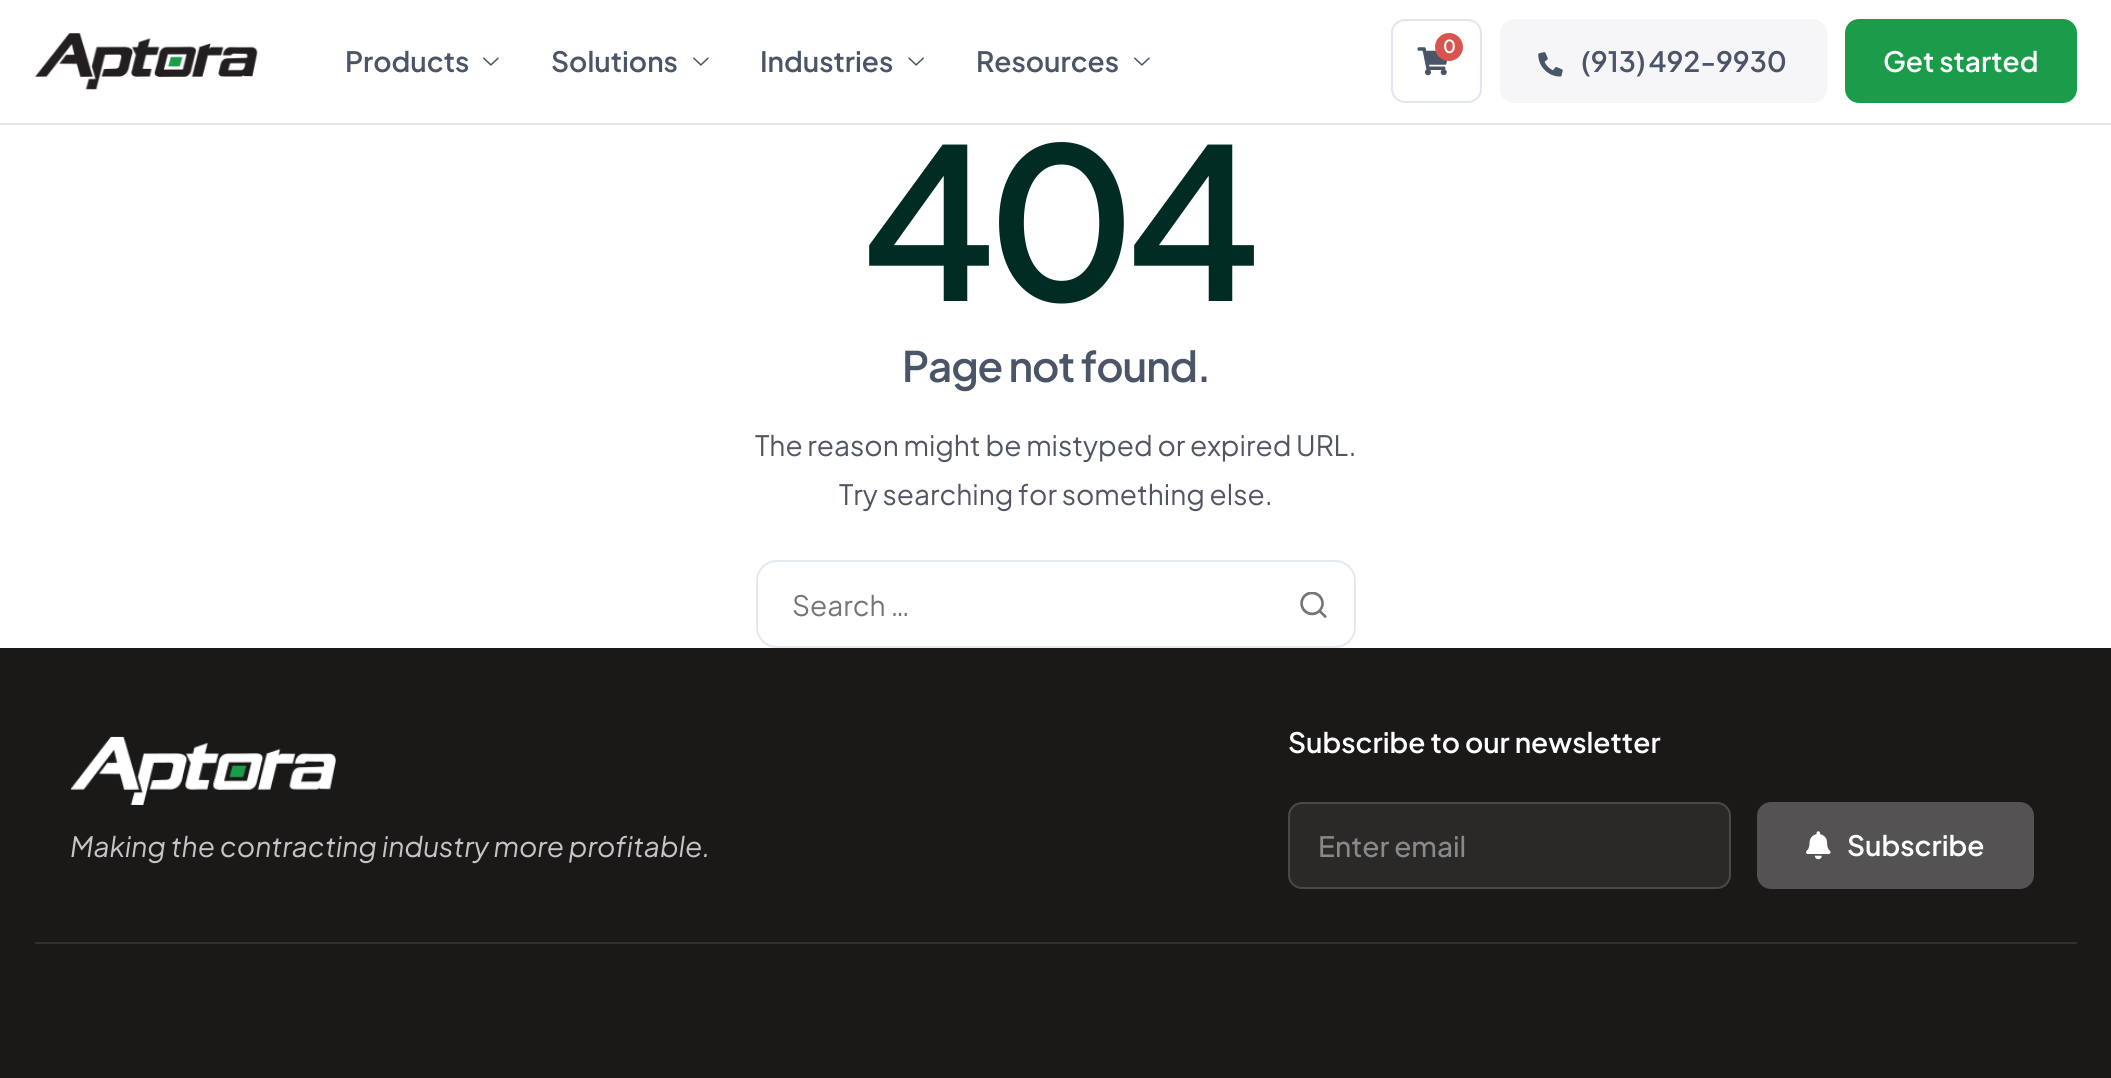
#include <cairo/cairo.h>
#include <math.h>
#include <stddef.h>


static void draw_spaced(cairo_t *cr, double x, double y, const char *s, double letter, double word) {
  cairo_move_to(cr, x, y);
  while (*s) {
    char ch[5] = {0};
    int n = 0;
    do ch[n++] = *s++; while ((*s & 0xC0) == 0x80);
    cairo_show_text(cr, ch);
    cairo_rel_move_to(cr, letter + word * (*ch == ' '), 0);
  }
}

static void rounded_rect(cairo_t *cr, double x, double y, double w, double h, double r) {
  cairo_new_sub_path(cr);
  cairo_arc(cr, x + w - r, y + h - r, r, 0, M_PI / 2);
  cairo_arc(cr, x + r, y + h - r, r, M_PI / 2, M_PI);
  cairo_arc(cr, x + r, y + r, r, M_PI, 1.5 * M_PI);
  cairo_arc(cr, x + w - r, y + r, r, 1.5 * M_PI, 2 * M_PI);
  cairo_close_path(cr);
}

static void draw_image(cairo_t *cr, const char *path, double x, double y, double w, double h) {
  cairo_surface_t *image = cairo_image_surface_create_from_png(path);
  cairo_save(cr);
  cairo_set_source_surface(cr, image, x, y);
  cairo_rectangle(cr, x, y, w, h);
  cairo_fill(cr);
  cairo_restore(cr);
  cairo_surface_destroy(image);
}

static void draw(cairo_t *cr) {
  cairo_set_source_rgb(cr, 1, 1, 1);
  cairo_paint(cr);
  cairo_set_source_rgb(cr, 226 / 255.0, 230 / 255.0, 240 / 255.0);
  cairo_rectangle(cr, 0, 123, 2111, 2);
  cairo_fill(cr);
  draw_image(cr, "images/1.png", 35, 33, 223, 57);
  draw_image(cr, "images/2.png", 483, 57, 16, 9);
  draw_image(cr, "images/2.png", 693, 57, 16, 9);
  draw_image(cr, "images/3.png", 908, 57, 16, 9);
  draw_image(cr, "images/2.png", 1134, 57, 16, 9);
  rounded_rect(cr, 1392, 20, 89, 82, 13);
  cairo_stroke(cr);
  draw_image(cr, "images/4.png", 1417, 47, 31, 29);
  cairo_set_source_rgb(cr, 217 / 255.0, 83 / 255.0, 79 / 255.0);
  cairo_arc(cr, 1449, 47, 14, 0, 2 * M_PI);
  cairo_fill(cr);
  cairo_set_source_rgb(cr, 246 / 255.0, 246 / 255.0, 249 / 255.0);
  rounded_rect(cr, 1500, 19, 327, 84, 14);
  cairo_fill(cr);
  draw_image(cr, "images/5.png", 1538, 52, 25, 25);
  cairo_set_source_rgb(cr, 26 / 255.0, 156 / 255.0, 75 / 255.0);
  rounded_rect(cr, 1845, 19, 232, 84, 14);
  cairo_fill(cr);
  rounded_rect(cr, 757, 561, 598, 86, 20);
  cairo_set_source_rgb(cr, 228 / 255.0, 233 / 255.0, 241 / 255.0);
  cairo_stroke(cr);
  draw_image(cr, "images/6.png", 1300, 592, 27, 26);
  cairo_set_source_rgb(cr, 27 / 255.0, 24 / 255.0, 24 / 255.0);
  cairo_rectangle(cr, 0, 648, 2111, 430);
  cairo_fill(cr);
  draw_image(cr, "images/7.png", 70, 736, 266, 69);
  cairo_set_source_rgb(cr, 43 / 255.0, 40 / 255.0, 40 / 255.0);
  rounded_rect(cr, 1288, 802, 443, 87, 14);
  cairo_fill(cr);
  rounded_rect(cr, 1289, 803, 441, 85, 13);
  cairo_set_source_rgba(cr, 1, 1, 1, 0.15);
  cairo_stroke(cr);
  cairo_set_source_rgb(cr, 84 / 255.0, 82 / 255.0, 82 / 255.0);
  rounded_rect(cr, 1757, 802, 277, 87, 14);
  cairo_fill(cr);
  draw_image(cr, "images/8.png", 1806, 831, 25, 29);
  cairo_set_source_rgb(cr, 50 / 255.0, 47 / 255.0, 47 / 255.0);
  cairo_rectangle(cr, 35, 942, 2042, 2);
  cairo_fill(cr);
  cairo_select_font_face(cr, "Plus Jakarta Sans SemiBold", CAIRO_FONT_SLANT_NORMAL, CAIRO_FONT_WEIGHT_NORMAL);
  cairo_set_font_size(cr, 28);
  cairo_set_source_rgb(cr, 74 / 255.0, 85 / 255.0, 103 / 255.0);
  cairo_move_to(cr, 345, 72);
  cairo_show_text(cr, "Products");
  cairo_move_to(cr, 551, 72);
  cairo_show_text(cr, "Solutions");
  cairo_move_to(cr, 760, 72);
  cairo_show_text(cr, "Industries");
  cairo_move_to(cr, 976, 72);
  cairo_show_text(cr, "Resources");
  cairo_set_font_size(cr, 18);
  cairo_set_source_rgb(cr, 1, 1, 1);
  cairo_move_to(cr, 1443, 53);
  cairo_show_text(cr, "0");
  cairo_set_font_size(cr, 28);
  cairo_set_source_rgb(cr, 74 / 255.0, 85 / 255.0, 103 / 255.0);
  draw_spaced(cr, 1581, 72, "(913) 492-9930", 0, -2);
  cairo_set_source_rgb(cr, 1, 1, 1);
  cairo_move_to(cr, 1883, 72);
  cairo_show_text(cr, "Get started");
  cairo_set_font_size(cr, 210);
  cairo_set_source_rgb(cr, 0, 44 / 255.0, 36 / 255.0);
  draw_spaced(cr, 861, 301, "404", -10.5, 0);
  cairo_set_font_size(cr, 42);
  cairo_set_source_rgb(cr, 74 / 255.0, 85 / 255.0, 103 / 255.0);
  draw_spaced(cr, 902, 382, "Page not found.", -1.1, 0);
  cairo_select_font_face(cr, "Plus Jakarta Sans", CAIRO_FONT_SLANT_NORMAL, CAIRO_FONT_WEIGHT_NORMAL);
  cairo_set_font_size(cr, 28);
  cairo_set_source_rgb(cr, 80 / 255.0, 86 / 255.0, 98 / 255.0);
  cairo_move_to(cr, 755, 456);
  cairo_show_text(cr, "The reason might be mistyped or expired URL.");
  cairo_move_to(cr, 839, 505);
  cairo_show_text(cr, "Try searching for something else.");
  cairo_set_source_rgb(cr, 117 / 255.0, 117 / 255.0, 117 / 255.0);
  cairo_move_to(cr, 792, 616);
  cairo_show_text(cr, "Search …");
  cairo_select_font_face(cr, "Plus Jakarta Sans", CAIRO_FONT_SLANT_ITALIC, CAIRO_FONT_WEIGHT_NORMAL);
  cairo_set_source_rgb(cr, 198 / 255.0, 197 / 255.0, 197 / 255.0);
  cairo_move_to(cr, 70, 857);
  cairo_show_text(cr, "Making the contracting industry more profitable.");
  cairo_select_font_face(cr, "Plus Jakarta Sans SemiBold", CAIRO_FONT_SLANT_NORMAL, CAIRO_FONT_WEIGHT_NORMAL);
  cairo_set_source_rgb(cr, 1, 1, 1);
  cairo_move_to(cr, 1288, 753);
  cairo_show_text(cr, "Subscribe to our newsletter");
  cairo_select_font_face(cr, "Plus Jakarta Sans Medium", CAIRO_FONT_SLANT_NORMAL, CAIRO_FONT_WEIGHT_NORMAL);
  cairo_set_source_rgb(cr, 138 / 255.0, 137 / 255.0, 137 / 255.0);
  cairo_move_to(cr, 1318, 857);
  cairo_show_text(cr, "Enter email");
  cairo_select_font_face(cr, "Plus Jakarta Sans SemiBold", CAIRO_FONT_SLANT_NORMAL, CAIRO_FONT_WEIGHT_NORMAL);
  cairo_set_source_rgb(cr, 1, 1, 1);
  cairo_move_to(cr, 1847, 856);
  cairo_show_text(cr, "Subscribe");
}

int main(void) {
  cairo_surface_t *surface = cairo_image_surface_create(CAIRO_FORMAT_RGB24, 2111, 1078);
  cairo_t *cr = cairo_create(surface);
  cairo_font_options_t *options = cairo_font_options_create();
  cairo_font_options_set_hint_metrics(options, CAIRO_HINT_METRICS_OFF);
  cairo_font_options_set_hint_style(options, CAIRO_HINT_STYLE_NONE);
  cairo_set_font_options(cr, options);
  cairo_set_miter_limit(cr, 4);
  draw(cr);
  cairo_surface_write_to_png(surface, "out.png");
  cairo_font_options_destroy(options);
  cairo_destroy(cr);
  cairo_surface_destroy(surface);
  return 0;
}
